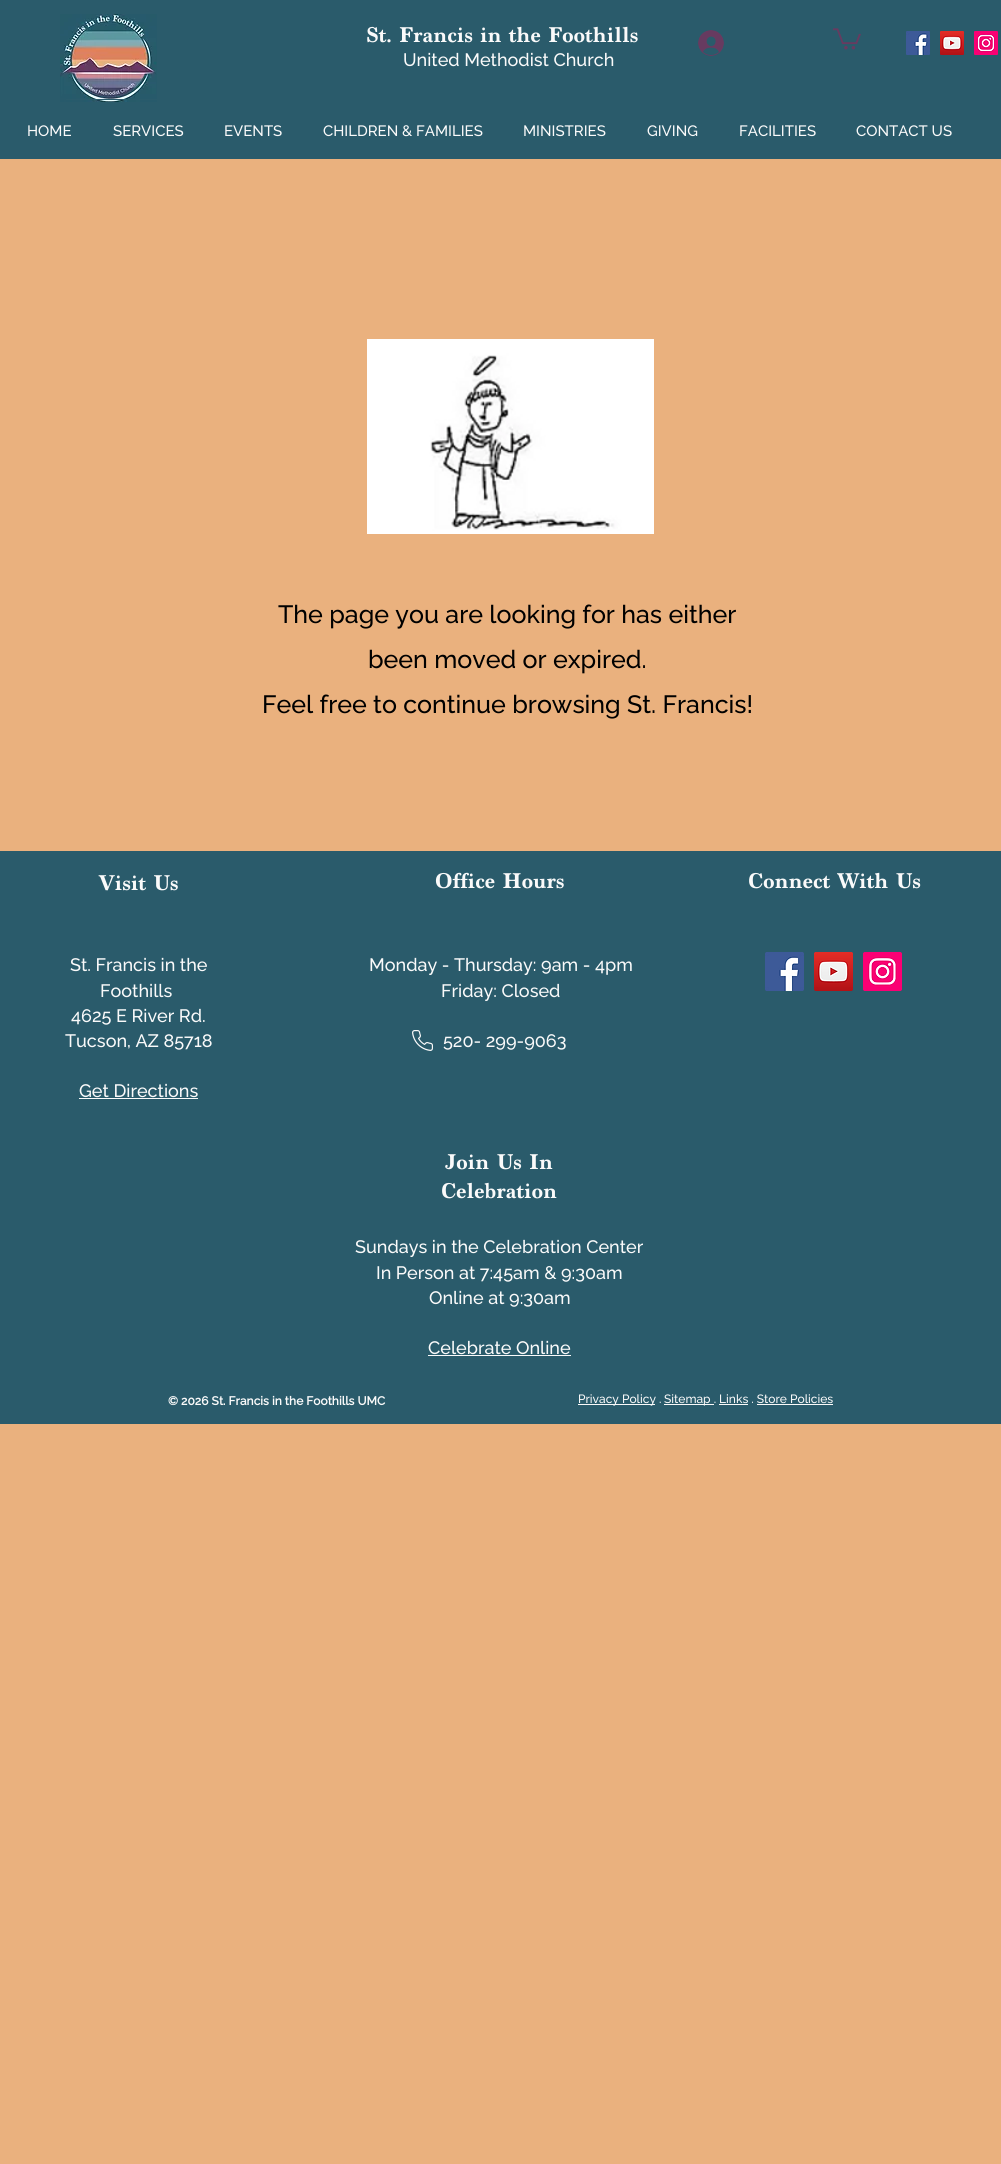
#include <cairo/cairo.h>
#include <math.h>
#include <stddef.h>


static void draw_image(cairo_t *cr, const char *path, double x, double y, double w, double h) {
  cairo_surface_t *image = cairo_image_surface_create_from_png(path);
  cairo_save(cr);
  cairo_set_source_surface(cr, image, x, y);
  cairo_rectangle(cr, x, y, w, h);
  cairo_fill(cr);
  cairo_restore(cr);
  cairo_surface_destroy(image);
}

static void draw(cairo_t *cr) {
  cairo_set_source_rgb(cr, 234 / 255.0, 177 / 255.0, 126 / 255.0);
  cairo_paint(cr);
  cairo_set_source_rgb(cr, 42 / 255.0, 91 / 255.0, 107 / 255.0);
  cairo_rectangle(cr, 0, 0, 1001, 159);
  cairo_fill(cr);
  draw_image(cr, "images/1.png", 60, 14, 97, 88);
  draw_image(cr, "images/2.png", 698, 30, 26, 26);
  draw_image(cr, "images/3.png", 833, 28, 28, 22);
  draw_image(cr, "images/4.png", 906, 31, 24, 24);
  draw_image(cr, "images/5.png", 940, 31, 24, 24);
  draw_image(cr, "images/6.png", 974, 31, 24, 24);
  draw_image(cr, "images/7.png", 367, 26, 271, 17);
  cairo_rectangle(cr, 66, 99, 91, 1);
  cairo_fill(cr);
  draw_image(cr, "images/8.png", 367, 339, 287, 195);
  cairo_rectangle(cr, 0, 851, 1001, 573);
  cairo_fill(cr);
  draw_image(cr, "images/9.png", 98, 875, 80, 16);
  draw_image(cr, "images/10.png", 435, 872, 129, 17);
  draw_image(cr, "images/11.png", 749, 872, 172, 17);
  cairo_set_source_rgb(cr, 250 / 255.0, 250 / 255.0, 250 / 255.0);
  cairo_rectangle(cr, 79, 1098, 119, 1);
  cairo_fill(cr);
  draw_image(cr, "images/12.png", 412, 1030, 21, 21);
  draw_image(cr, "images/13.png", 765, 952, 39, 39);
  draw_image(cr, "images/14.png", 814, 952, 39, 39);
  draw_image(cr, "images/15.png", 863, 952, 39, 39);
  draw_image(cr, "images/16.png", 445, 1154, 108, 16);
  draw_image(cr, "images/17.png", 442, 1182, 115, 17);
  cairo_rectangle(cr, 428, 1355, 143, 1);
  cairo_fill(cr);
  cairo_rectangle(cr, 578, 1404, 77, 1);
  cairo_fill(cr);
  cairo_rectangle(cr, 664, 1404, 50, 1);
  cairo_fill(cr);
  cairo_rectangle(cr, 719, 1404, 29, 1);
  cairo_fill(cr);
  cairo_rectangle(cr, 757, 1404, 76, 1);
  cairo_fill(cr);
  cairo_select_font_face(cr, "Raleway Medium", CAIRO_FONT_SLANT_NORMAL, CAIRO_FONT_WEIGHT_NORMAL);
  cairo_set_font_size(cr, 18);
  cairo_move_to(cr, 403, 66);
  cairo_show_text(cr, "United Methodist Church");
  cairo_set_font_size(cr, 15);
  cairo_move_to(cr, 27, 136);
  cairo_show_text(cr, "HOME");
  cairo_move_to(cr, 113, 136);
  cairo_show_text(cr, "SERVICES");
  cairo_move_to(cr, 224, 136);
  cairo_show_text(cr, "EVENTS");
  cairo_move_to(cr, 323, 136);
  cairo_show_text(cr, "CHILDREN & FAMILIES");
  cairo_move_to(cr, 523, 136);
  cairo_show_text(cr, "MINISTRIES");
  cairo_move_to(cr, 647, 136);
  cairo_show_text(cr, "GIVING");
  cairo_move_to(cr, 739, 136);
  cairo_show_text(cr, "FACILITIES");
  cairo_move_to(cr, 856, 136);
  cairo_show_text(cr, "CONTACT US");
  cairo_set_font_size(cr, 25);
  cairo_set_source_rgb(cr, 0, 0, 0);
  cairo_move_to(cr, 278, 623);
  cairo_show_text(cr, "The page you are looking for has either");
  cairo_move_to(cr, 368, 668);
  cairo_show_text(cr, "been moved or expired.");
  cairo_move_to(cr, 262, 713);
  cairo_show_text(cr, "Feel free to continue browsing St. Francis!");
  cairo_set_font_size(cr, 18);
  cairo_set_source_rgb(cr, 250 / 255.0, 250 / 255.0, 250 / 255.0);
  cairo_move_to(cr, 70, 971);
  cairo_show_text(cr, "St. Francis in the");
  cairo_move_to(cr, 100, 997);
  cairo_show_text(cr, "Foothills");
  cairo_move_to(cr, 71, 1022);
  cairo_show_text(cr, "4625 E River Rd.");
  cairo_move_to(cr, 65, 1047);
  cairo_show_text(cr, "Tucson, AZ 85718");
  cairo_move_to(cr, 79, 1097);
  cairo_show_text(cr, "Get Directions");
  cairo_move_to(cr, 369, 971);
  cairo_show_text(cr, "Monday - Thursday: 9am - 4pm");
  cairo_move_to(cr, 441, 997);
  cairo_show_text(cr, "Friday: Closed");
  cairo_move_to(cr, 443, 1047);
  cairo_show_text(cr, "520- 299-9063");
  cairo_move_to(cr, 355, 1253);
  cairo_show_text(cr, "Sundays in the Celebration Center");
  cairo_move_to(cr, 376, 1279);
  cairo_show_text(cr, "In Person at 7:45am & 9:30am");
  cairo_move_to(cr, 429, 1304);
  cairo_show_text(cr, "Online at 9:30am");
  cairo_move_to(cr, 428, 1354);
  cairo_show_text(cr, "Celebrate Online");
  cairo_select_font_face(cr, "Raleway", CAIRO_FONT_SLANT_NORMAL, CAIRO_FONT_WEIGHT_BOLD);
  cairo_set_font_size(cr, 12);
  cairo_move_to(cr, 168, 1405);
  cairo_show_text(cr, "© 2026 St. Francis in the Foothills UMC");
  cairo_select_font_face(cr, "Raleway Medium", CAIRO_FONT_SLANT_NORMAL, CAIRO_FONT_WEIGHT_NORMAL);
  cairo_move_to(cr, 578, 1403);
  cairo_show_text(cr, "Privacy Policy .");
  cairo_move_to(cr, 664, 1403);
  cairo_show_text(cr, "Sitemap . Links . Store Policies");
}

int main(void) {
  cairo_surface_t *surface = cairo_image_surface_create(CAIRO_FORMAT_RGB24, 1001, 2164);
  cairo_t *cr = cairo_create(surface);
  cairo_font_options_t *options = cairo_font_options_create();
  cairo_font_options_set_hint_metrics(options, CAIRO_HINT_METRICS_OFF);
  cairo_font_options_set_hint_style(options, CAIRO_HINT_STYLE_NONE);
  cairo_set_font_options(cr, options);
  cairo_set_miter_limit(cr, 4);
  draw(cr);
  cairo_surface_write_to_png(surface, "out.png");
  cairo_font_options_destroy(options);
  cairo_destroy(cr);
  cairo_surface_destroy(surface);
  return 0;
}
